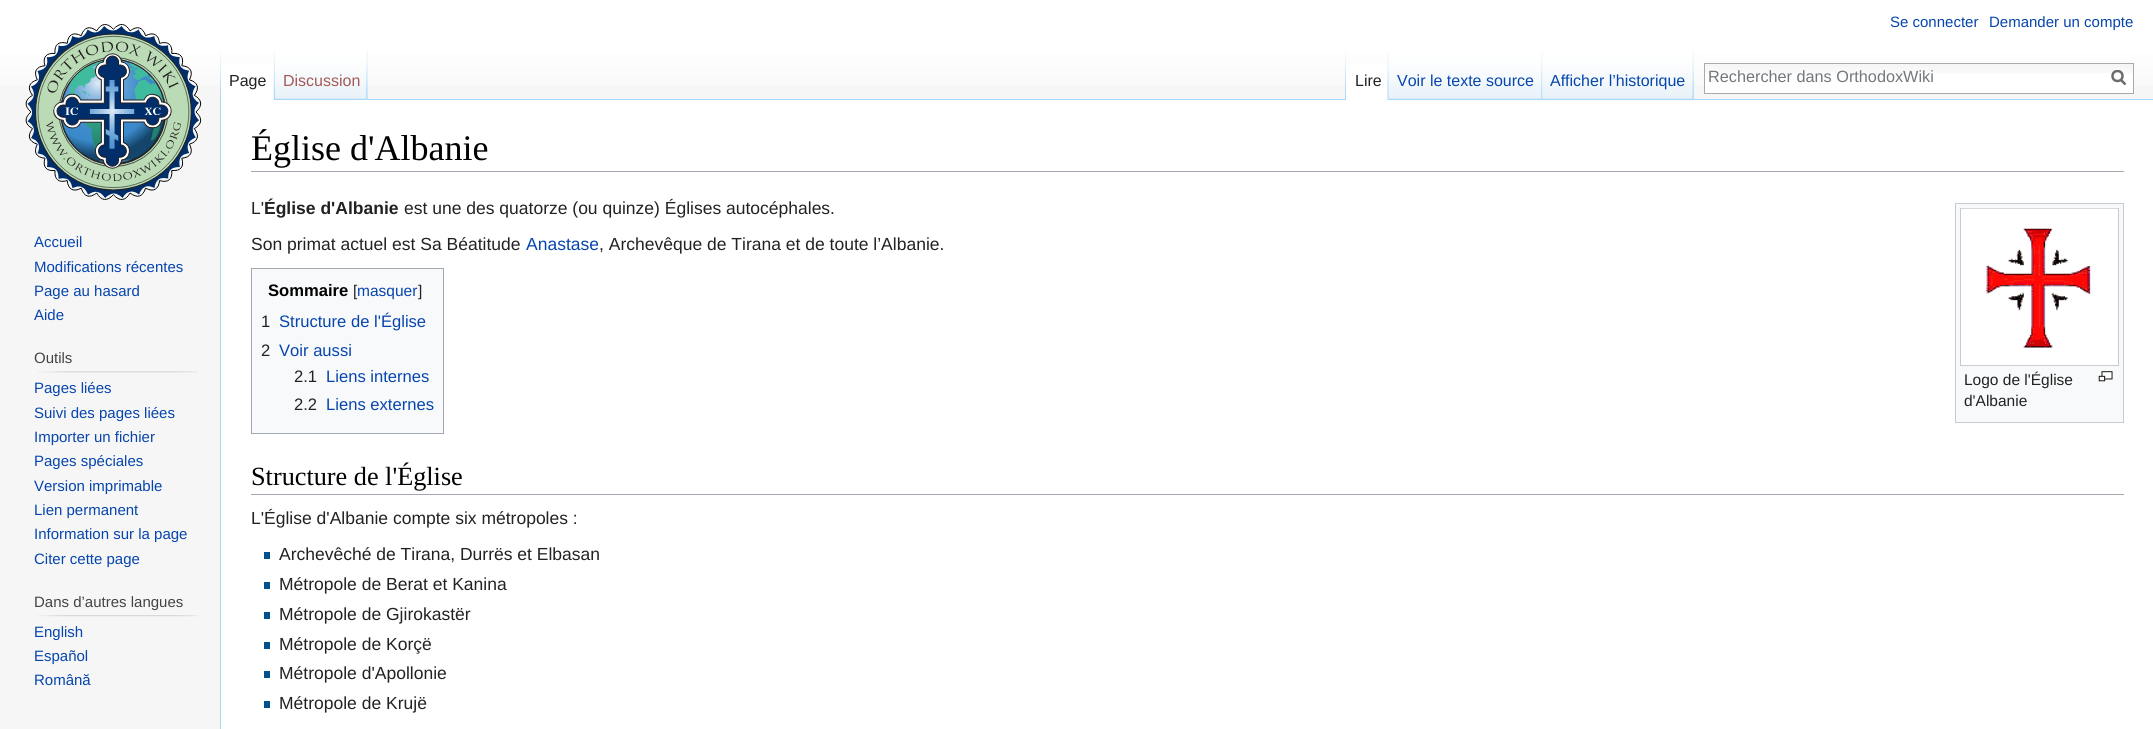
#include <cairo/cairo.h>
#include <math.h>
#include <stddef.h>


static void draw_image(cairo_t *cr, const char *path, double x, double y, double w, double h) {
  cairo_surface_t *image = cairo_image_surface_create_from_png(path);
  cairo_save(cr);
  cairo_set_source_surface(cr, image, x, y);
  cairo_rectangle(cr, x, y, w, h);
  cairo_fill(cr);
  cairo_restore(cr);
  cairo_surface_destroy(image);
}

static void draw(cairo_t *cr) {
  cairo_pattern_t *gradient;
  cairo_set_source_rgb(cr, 246 / 255.0, 246 / 255.0, 246 / 255.0);
  cairo_paint(cr);
  gradient = cairo_pattern_create_linear(1077, 0, 1077, 100);
  cairo_pattern_add_color_stop_rgba(gradient, 0.5, 1, 1, 1, 1);
  cairo_pattern_add_color_stop_rgba(gradient, 1, 246 / 255.0, 246 / 255.0, 246 / 255.0, 1);
  cairo_set_source(cr, gradient);
  cairo_pattern_destroy(gradient);
  cairo_rectangle(cr, 0, 0, 2153, 86);
  cairo_fill(cr);
  draw_image(cr, "images/1.png", 220, 50, 1, 49);
  cairo_set_source_rgb(cr, 1, 1, 1);
  cairo_rectangle(cr, 221, 64, 53, 36);
  cairo_fill(cr);
  draw_image(cr, "images/2.png", 273, 50, 2, 50);
  cairo_set_source_rgb(cr, 243 / 255.0, 243 / 255.0, 243 / 255.0);
  cairo_rectangle(cr, 367, 50, 1, 50);
  cairo_fill(cr);
  draw_image(cr, "images/3.png", 275, 50, 93, 50);
  draw_image(cr, "images/4.png", 366, 52, 2, 48);
  draw_image(cr, "images/1.png", 1345, 50, 1, 49);
  draw_image(cr, "images/5.png", 1693, 52, 1, 47);
  cairo_set_source_rgb(cr, 167 / 255.0, 215 / 255.0, 249 / 255.0);
  cairo_rectangle(cr, 368, 99, 1785, 1);
  cairo_fill(cr);
  cairo_set_source_rgb(cr, 1, 1, 1);
  cairo_rectangle(cr, 1346, 64, 43, 36);
  cairo_fill(cr);
  draw_image(cr, "images/6.png", 1387, 52, 2, 48);
  draw_image(cr, "images/7.png", 1388, 50, 155, 50);
  draw_image(cr, "images/4.png", 1541, 52, 2, 48);
  draw_image(cr, "images/8.png", 1542, 50, 152, 50);
  draw_image(cr, "images/9.png", 1692, 52, 2, 48);
  cairo_rectangle(cr, 1705, 74, 428, 19);
  cairo_fill(cr);
  draw_image(cr, "images/10.png", 1705, 64, 428, 10);
  cairo_rectangle(cr, 1704.5, 63.5, 429, 30);
  cairo_set_source_rgb(cr, 170 / 255.0, 170 / 255.0, 170 / 255.0);
  cairo_set_line_width(cr, 1);
  cairo_stroke(cr);
  cairo_new_path(cr);
  cairo_move_to(cr, 2125.5, 84.5);
  cairo_line_to(cr, 2120.5, 79.5);
  cairo_set_source_rgb(cr, 108 / 255.0, 108 / 255.0, 108 / 255.0);
  cairo_set_line_width(cr, 2.5);
  cairo_stroke(cr);
  cairo_save(cr);
  cairo_rectangle(cr, 2111, 70, 15, 16);
  cairo_clip(cr);
  cairo_arc(cr, 2117.5, 76, 5, 0, 2 * M_PI);
  cairo_stroke(cr);
  cairo_restore(cr);
  draw_image(cr, "images/11.png", 25, 24, 177, 176);
  draw_image(cr, "images/12.png", 37, 371, 161, 2);
  draw_image(cr, "images/13.png", 37, 615, 161, 2);
  cairo_set_source_rgb(cr, 1, 1, 1);
  cairo_rectangle(cr, 221, 100, 1932, 629);
  cairo_fill(cr);
  cairo_set_source_rgb(cr, 167 / 255.0, 215 / 255.0, 249 / 255.0);
  cairo_rectangle(cr, 220, 99, 1, 630);
  cairo_fill(cr);
  cairo_set_source_rgb(cr, 162 / 255.0, 169 / 255.0, 177 / 255.0);
  cairo_rectangle(cr, 251, 171, 1873, 1);
  cairo_fill(cr);
  cairo_set_source_rgb(cr, 248 / 255.0, 249 / 255.0, 250 / 255.0);
  cairo_rectangle(cr, 251.5, 268.5, 192, 165);
  cairo_fill_preserve(cr);
  cairo_set_source_rgb(cr, 162 / 255.0, 169 / 255.0, 177 / 255.0);
  cairo_set_line_width(cr, 1);
  cairo_stroke(cr);
  cairo_set_source_rgb(cr, 248 / 255.0, 249 / 255.0, 250 / 255.0);
  cairo_rectangle(cr, 1955.5, 203.5, 168, 219);
  cairo_fill_preserve(cr);
  cairo_set_source_rgb(cr, 200 / 255.0, 204 / 255.0, 209 / 255.0);
  cairo_stroke(cr);
  cairo_set_source_rgb(cr, 1, 1, 1);
  cairo_rectangle(cr, 1960.5, 208.5, 158, 157);
  cairo_fill_preserve(cr);
  cairo_set_source_rgb(cr, 200 / 255.0, 204 / 255.0, 209 / 255.0);
  cairo_stroke(cr);
  draw_image(cr, "images/14.png", 1961, 208, 157, 140);
  draw_image(cr, "images/15.png", 2098, 371, 15, 11);
  cairo_set_source_rgb(cr, 162 / 255.0, 169 / 255.0, 177 / 255.0);
  cairo_rectangle(cr, 251, 494, 1873, 1);
  cairo_fill(cr);
  cairo_set_source_rgb(cr, 0, 82 / 255.0, 140 / 255.0);
  cairo_rectangle(cr, 264, 552, 6, 7);
  cairo_fill(cr);
  cairo_rectangle(cr, 264, 582, 6, 7);
  cairo_fill(cr);
  cairo_rectangle(cr, 264, 612, 6, 7);
  cairo_fill(cr);
  cairo_rectangle(cr, 264, 642, 6, 7);
  cairo_fill(cr);
  cairo_rectangle(cr, 264, 671, 6, 7);
  cairo_fill(cr);
  cairo_rectangle(cr, 264, 701, 6, 7);
  cairo_fill(cr);
  cairo_select_font_face(cr, "Liberation Sans", CAIRO_FONT_SLANT_NORMAL, CAIRO_FONT_WEIGHT_NORMAL);
  cairo_set_font_size(cr, 15);
  cairo_set_source_rgb(cr, 6 / 255.0, 69 / 255.0, 173 / 255.0);
  cairo_move_to(cr, 1890, 27);
  cairo_show_text(cr, "Se connecter");
  cairo_move_to(cr, 1989, 27);
  cairo_show_text(cr, "Demander un compte");
  cairo_set_font_size(cr, 16);
  cairo_set_source_rgb(cr, 34 / 255.0, 34 / 255.0, 34 / 255.0);
  cairo_move_to(cr, 229, 86);
  cairo_show_text(cr, "Page");
  cairo_set_source_rgb(cr, 165 / 255.0, 88 / 255.0, 88 / 255.0);
  cairo_move_to(cr, 283, 86);
  cairo_show_text(cr, "Discussion");
  cairo_set_source_rgb(cr, 34 / 255.0, 34 / 255.0, 34 / 255.0);
  cairo_move_to(cr, 1355, 86);
  cairo_show_text(cr, "Lire");
  cairo_set_source_rgb(cr, 6 / 255.0, 69 / 255.0, 173 / 255.0);
  cairo_move_to(cr, 1397, 86);
  cairo_show_text(cr, "Voir le texte source");
  cairo_move_to(cr, 1550, 86);
  cairo_show_text(cr, "Afficher l’historique");
  cairo_set_font_size(cr, 16.25);
  cairo_set_source_rgb(cr, 114 / 255.0, 119 / 255.0, 125 / 255.0);
  cairo_move_to(cr, 1708, 82);
  cairo_show_text(cr, "Rechercher dans OrthodoxWiki");
  cairo_set_font_size(cr, 15);
  cairo_set_source_rgb(cr, 6 / 255.0, 69 / 255.0, 173 / 255.0);
  cairo_move_to(cr, 34, 247);
  cairo_show_text(cr, "Accueil");
  cairo_move_to(cr, 34, 272);
  cairo_show_text(cr, "Modifications récentes");
  cairo_move_to(cr, 34, 296);
  cairo_show_text(cr, "Page au hasard");
  cairo_move_to(cr, 34, 320);
  cairo_show_text(cr, "Aide");
  cairo_set_source_rgb(cr, 68 / 255.0, 68 / 255.0, 68 / 255.0);
  cairo_move_to(cr, 34, 363);
  cairo_show_text(cr, "Outils");
  cairo_set_source_rgb(cr, 6 / 255.0, 69 / 255.0, 173 / 255.0);
  cairo_move_to(cr, 34, 393);
  cairo_show_text(cr, "Pages liées");
  cairo_move_to(cr, 34, 418);
  cairo_show_text(cr, "Suivi des pages liées");
  cairo_move_to(cr, 34, 442);
  cairo_show_text(cr, "Importer un fichier");
  cairo_move_to(cr, 34, 466);
  cairo_show_text(cr, "Pages spéciales");
  cairo_move_to(cr, 34, 491);
  cairo_show_text(cr, "Version imprimable");
  cairo_move_to(cr, 34, 515);
  cairo_show_text(cr, "Lien permanent");
  cairo_move_to(cr, 34, 539);
  cairo_show_text(cr, "Information sur la page");
  cairo_move_to(cr, 34, 564);
  cairo_show_text(cr, "Citer cette page");
  cairo_set_source_rgb(cr, 68 / 255.0, 68 / 255.0, 68 / 255.0);
  cairo_move_to(cr, 34, 607);
  cairo_show_text(cr, "Dans d’autres langues");
  cairo_set_source_rgb(cr, 6 / 255.0, 69 / 255.0, 173 / 255.0);
  cairo_move_to(cr, 34, 637);
  cairo_show_text(cr, "English");
  cairo_move_to(cr, 34, 661);
  cairo_show_text(cr, "Español");
  cairo_move_to(cr, 34, 685);
  cairo_show_text(cr, "Română");
  cairo_select_font_face(cr, "Liberation Serif", CAIRO_FONT_SLANT_NORMAL, CAIRO_FONT_WEIGHT_NORMAL);
  cairo_set_font_size(cr, 36);
  cairo_set_source_rgb(cr, 0, 0, 0);
  cairo_move_to(cr, 251, 160);
  cairo_show_text(cr, "Église d'Albanie");
  cairo_select_font_face(cr, "Liberation Sans", CAIRO_FONT_SLANT_NORMAL, CAIRO_FONT_WEIGHT_NORMAL);
  cairo_set_font_size(cr, 17.5);
  cairo_set_source_rgb(cr, 34 / 255.0, 34 / 255.0, 34 / 255.0);
  cairo_move_to(cr, 251, 214);
  cairo_show_text(cr, "L'");
  cairo_select_font_face(cr, "Liberation Sans", CAIRO_FONT_SLANT_NORMAL, CAIRO_FONT_WEIGHT_BOLD);
  cairo_move_to(cr, 264, 214);
  cairo_show_text(cr, "Église d'Albanie");
  cairo_select_font_face(cr, "Liberation Sans", CAIRO_FONT_SLANT_NORMAL, CAIRO_FONT_WEIGHT_NORMAL);
  cairo_move_to(cr, 404, 214);
  cairo_show_text(cr, "est une des quatorze (ou quinze) Églises autocéphales.");
  cairo_move_to(cr, 251, 250);
  cairo_show_text(cr, "Son primat actuel est Sa Béatitude");
  cairo_set_source_rgb(cr, 6 / 255.0, 69 / 255.0, 173 / 255.0);
  cairo_move_to(cr, 526, 250);
  cairo_show_text(cr, "Anastase");
  cairo_set_source_rgb(cr, 34 / 255.0, 34 / 255.0, 34 / 255.0);
  cairo_move_to(cr, 599, 250);
  cairo_show_text(cr, ", Archevêque de Tirana et de toute l’Albanie.");
  cairo_select_font_face(cr, "Liberation Sans", CAIRO_FONT_SLANT_NORMAL, CAIRO_FONT_WEIGHT_BOLD);
  cairo_set_font_size(cr, 16.6);
  cairo_set_source_rgb(cr, 0, 0, 0);
  cairo_move_to(cr, 268, 296);
  cairo_show_text(cr, "Sommaire");
  cairo_select_font_face(cr, "Liberation Sans", CAIRO_FONT_SLANT_NORMAL, CAIRO_FONT_WEIGHT_NORMAL);
  cairo_set_font_size(cr, 15.5);
  cairo_set_source_rgb(cr, 34 / 255.0, 34 / 255.0, 34 / 255.0);
  cairo_move_to(cr, 353, 296);
  cairo_show_text(cr, "[");
  cairo_set_source_rgb(cr, 6 / 255.0, 69 / 255.0, 173 / 255.0);
  cairo_move_to(cr, 357, 296);
  cairo_show_text(cr, "masquer");
  cairo_set_source_rgb(cr, 34 / 255.0, 34 / 255.0, 34 / 255.0);
  cairo_move_to(cr, 418, 296);
  cairo_show_text(cr, "]");
  cairo_set_font_size(cr, 16.6);
  cairo_move_to(cr, 261, 327);
  cairo_show_text(cr, "1");
  cairo_set_source_rgb(cr, 6 / 255.0, 69 / 255.0, 173 / 255.0);
  cairo_move_to(cr, 279, 327);
  cairo_show_text(cr, "Structure de l'Église");
  cairo_set_source_rgb(cr, 34 / 255.0, 34 / 255.0, 34 / 255.0);
  cairo_move_to(cr, 261, 356);
  cairo_show_text(cr, "2");
  cairo_set_source_rgb(cr, 6 / 255.0, 69 / 255.0, 173 / 255.0);
  cairo_move_to(cr, 279, 356);
  cairo_show_text(cr, "Voir aussi");
  cairo_set_source_rgb(cr, 34 / 255.0, 34 / 255.0, 34 / 255.0);
  cairo_move_to(cr, 294, 382);
  cairo_show_text(cr, "2.1");
  cairo_set_source_rgb(cr, 6 / 255.0, 69 / 255.0, 173 / 255.0);
  cairo_move_to(cr, 326, 382);
  cairo_show_text(cr, "Liens internes");
  cairo_set_source_rgb(cr, 34 / 255.0, 34 / 255.0, 34 / 255.0);
  cairo_move_to(cr, 294, 410);
  cairo_show_text(cr, "2.2");
  cairo_set_source_rgb(cr, 6 / 255.0, 69 / 255.0, 173 / 255.0);
  cairo_move_to(cr, 326, 410);
  cairo_show_text(cr, "Liens externes");
  cairo_set_font_size(cr, 15.5);
  cairo_set_source_rgb(cr, 34 / 255.0, 34 / 255.0, 34 / 255.0);
  cairo_move_to(cr, 1964, 385);
  cairo_show_text(cr, "Logo de l'Église");
  cairo_move_to(cr, 1964, 406);
  cairo_show_text(cr, "d'Albanie");
  cairo_select_font_face(cr, "Liberation Serif", CAIRO_FONT_SLANT_NORMAL, CAIRO_FONT_WEIGHT_NORMAL);
  cairo_set_font_size(cr, 26.25);
  cairo_set_source_rgb(cr, 0, 0, 0);
  cairo_move_to(cr, 251, 485);
  cairo_show_text(cr, "Structure de l'Église");
  cairo_select_font_face(cr, "Liberation Sans", CAIRO_FONT_SLANT_NORMAL, CAIRO_FONT_WEIGHT_NORMAL);
  cairo_set_font_size(cr, 17.5);
  cairo_set_source_rgb(cr, 34 / 255.0, 34 / 255.0, 34 / 255.0);
  cairo_move_to(cr, 251, 524);
  cairo_show_text(cr, "L'Église d'Albanie compte six métropoles :");
  cairo_move_to(cr, 279, 560);
  cairo_show_text(cr, "Archevêché de Tirana, Durrës et Elbasan");
  cairo_move_to(cr, 279, 590);
  cairo_show_text(cr, "Métropole de Berat et Kanina");
  cairo_move_to(cr, 279, 620);
  cairo_show_text(cr, "Métropole de Gjirokastër");
  cairo_move_to(cr, 279, 650);
  cairo_show_text(cr, "Métropole de Korçë");
  cairo_move_to(cr, 279, 679);
  cairo_show_text(cr, "Métropole d'Apollonie");
  cairo_move_to(cr, 279, 709);
  cairo_show_text(cr, "Métropole de Krujë");
}

int main(void) {
  cairo_surface_t *surface = cairo_image_surface_create(CAIRO_FORMAT_RGB24, 2153, 729);
  cairo_t *cr = cairo_create(surface);
  cairo_font_options_t *options = cairo_font_options_create();
  cairo_font_options_set_hint_metrics(options, CAIRO_HINT_METRICS_OFF);
  cairo_font_options_set_hint_style(options, CAIRO_HINT_STYLE_NONE);
  cairo_set_font_options(cr, options);
  cairo_set_miter_limit(cr, 4);
  draw(cr);
  cairo_surface_write_to_png(surface, "out.png");
  cairo_font_options_destroy(options);
  cairo_destroy(cr);
  cairo_surface_destroy(surface);
  return 0;
}
